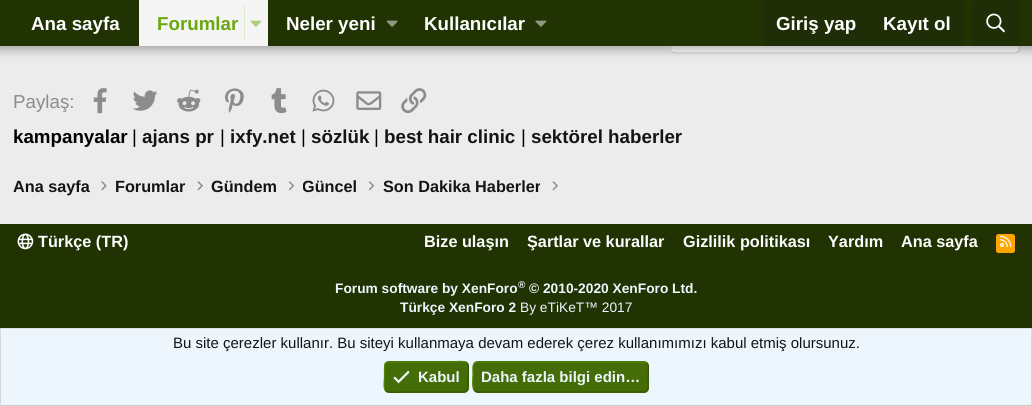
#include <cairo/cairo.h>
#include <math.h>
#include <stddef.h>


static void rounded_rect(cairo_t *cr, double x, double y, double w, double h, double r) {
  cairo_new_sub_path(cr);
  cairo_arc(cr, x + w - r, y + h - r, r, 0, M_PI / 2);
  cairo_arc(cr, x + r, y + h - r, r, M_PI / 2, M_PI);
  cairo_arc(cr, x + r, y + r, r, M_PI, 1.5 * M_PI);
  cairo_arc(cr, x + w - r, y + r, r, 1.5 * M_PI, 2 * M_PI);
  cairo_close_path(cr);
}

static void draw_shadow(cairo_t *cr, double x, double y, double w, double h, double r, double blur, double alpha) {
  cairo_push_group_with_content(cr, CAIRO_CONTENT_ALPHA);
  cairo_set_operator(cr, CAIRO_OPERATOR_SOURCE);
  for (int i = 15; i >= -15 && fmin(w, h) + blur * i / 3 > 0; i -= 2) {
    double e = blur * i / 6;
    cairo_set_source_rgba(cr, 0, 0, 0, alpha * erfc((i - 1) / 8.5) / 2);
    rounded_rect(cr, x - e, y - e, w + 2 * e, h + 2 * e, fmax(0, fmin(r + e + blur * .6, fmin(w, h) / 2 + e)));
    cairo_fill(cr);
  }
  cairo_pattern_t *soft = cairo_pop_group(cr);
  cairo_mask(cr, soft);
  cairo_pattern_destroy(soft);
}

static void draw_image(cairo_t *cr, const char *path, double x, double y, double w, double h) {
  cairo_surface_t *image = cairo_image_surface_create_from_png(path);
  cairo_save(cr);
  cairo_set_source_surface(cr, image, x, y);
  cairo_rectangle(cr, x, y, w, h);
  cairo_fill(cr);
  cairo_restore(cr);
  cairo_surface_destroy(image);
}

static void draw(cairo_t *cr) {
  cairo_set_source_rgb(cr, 236 / 255.0, 236 / 255.0, 236 / 255.0);
  cairo_paint(cr);
  cairo_set_source_rgb(cr, 254 / 255.0, 254 / 255.0, 254 / 255.0);
  rounded_rect(cr, 670, 16, 350, 38, 5);
  cairo_fill(cr);
  cairo_new_path(cr);
  cairo_move_to(cr, 1018, 18);
  cairo_curve_to(cr, 1019, 19, 1019.5, 20, 1019.5, 21);
  cairo_line_to(cr, 1019.5, 49);
  cairo_curve_to(cr, 1019.5, 50, 1019, 51, 1018, 52);
  cairo_curve_to(cr, 1017.5, 52.5, 1016, 53, 1015, 53);
  cairo_line_to(cr, 675, 53);
  cairo_curve_to(cr, 674, 53, 672.5, 52.5, 672, 52);
  cairo_set_source_rgb(cr, 203 / 255.0, 203 / 255.0, 203 / 255.0);
  cairo_set_line_width(cr, 1.2);
  cairo_stroke(cr);
  cairo_new_path(cr);
  cairo_move_to(cr, 672, 52);
  cairo_curve_to(cr, 671, 51, 670.5, 50, 670.5, 49);
  cairo_line_to(cr, 670.5, 21);
  cairo_curve_to(cr, 670.5, 20, 671, 19, 672, 18);
  cairo_curve_to(cr, 672.5, 17.5, 674, 17, 675, 17);
  cairo_line_to(cr, 1015, 17);
  cairo_curve_to(cr, 1016, 17, 1017.5, 17.5, 1018, 18);
  cairo_set_source_rgb(cr, 229 / 255.0, 229 / 255.0, 229 / 255.0);
  cairo_stroke(cr);
  cairo_set_source_rgb(cr, 0, 0, 0);
  draw_shadow(cr, -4, -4, 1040, 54, 0, 5, 0.3);
  cairo_set_source_rgb(cr, 33 / 255.0, 51 / 255.0, 3 / 255.0);
  cairo_rectangle(cr, 0, 0, 1032, 46);
  cairo_fill(cr);
  cairo_set_source_rgb(cr, 245 / 255.0, 245 / 255.0, 245 / 255.0);
  cairo_rectangle(cr, 139, 0, 129, 46);
  cairo_fill(cr);
  cairo_set_source_rgb(cr, 221 / 255.0, 232 / 255.0, 205 / 255.0);
  cairo_rectangle(cr, 244, 6, 1, 34);
  cairo_fill(cr);
  draw_image(cr, "images/1.png", 250, 20, 12, 7);
  draw_image(cr, "images/2.png", 386, 20, 12, 7);
  draw_image(cr, "images/3.png", 535, 20, 12, 7);
  cairo_set_source_rgb(cr, 31 / 255.0, 46 / 255.0, 6 / 255.0);
  cairo_rectangle(cr, 764, 0, 199, 46);
  cairo_fill(cr);
  cairo_set_source_rgb(cr, 29 / 255.0, 42 / 255.0, 8 / 255.0);
  cairo_rectangle(cr, 869, 0, 1, 46);
  cairo_fill(cr);
  cairo_set_source_rgb(cr, 31 / 255.0, 46 / 255.0, 6 / 255.0);
  cairo_new_path(cr);
  cairo_move_to(cr, 978, 0);
  cairo_line_to(cr, 1015, 0);
  cairo_curve_to(cr, 1018, 0, 1020, 2, 1020, 5);
  cairo_line_to(cr, 1020, 46);
  cairo_line_to(cr, 973, 46);
  cairo_line_to(cr, 973, 5);
  cairo_curve_to(cr, 973, 2, 975, 0, 978, 0);
  cairo_close_path(cr);
  cairo_fill(cr);
  draw_image(cr, "images/4.png", 986, 13, 19, 20);
  draw_image(cr, "images/5.png", 93, 88, 14, 26);
  draw_image(cr, "images/6.png", 132, 90, 26, 21);
  draw_image(cr, "images/7.png", 177, 89, 24, 23);
  draw_image(cr, "images/8.png", 225, 88, 19, 25);
  draw_image(cr, "images/9.png", 271, 88, 16, 26);
  draw_image(cr, "images/10.png", 312, 89, 23, 23);
  draw_image(cr, "images/11.png", 356, 91, 26, 19);
  draw_image(cr, "images/12.png", 401, 88, 26, 26);
  draw_image(cr, "images/13.png", 101, 181, 6, 10);
  draw_image(cr, "images/14.png", 197, 181, 6, 10);
  draw_image(cr, "images/15.png", 288, 181, 7, 10);
  draw_image(cr, "images/15.png", 368, 181, 7, 10);
  draw_image(cr, "images/14.png", 552, 181, 6, 10);
  cairo_set_source_rgb(cr, 33 / 255.0, 51 / 255.0, 3 / 255.0);
  cairo_rectangle(cr, 0, 224, 1032, 104);
  cairo_fill(cr);
  draw_image(cr, "images/16.png", 17, 233, 17, 17);
  cairo_set_source_rgb(cr, 1, 165 / 255.0, 0);
  rounded_rect(cr, 996, 234, 19, 19, 2.5);
  cairo_fill(cr);
  draw_image(cr, "images/17.png", 1000, 235, 12, 13);
  cairo_set_source_rgb(cr, 237 / 255.0, 246 / 255.0, 253 / 255.0);
  cairo_rectangle(cr, 1, 329, 1030, 76);
  cairo_fill(cr);
  cairo_set_source_rgb(cr, 223 / 255.0, 223 / 255.0, 223 / 255.0);
  cairo_rectangle(cr, 0, 328, 1032, 1);
  cairo_fill(cr);
  cairo_set_source_rgb(cr, 216 / 255.0, 216 / 255.0, 216 / 255.0);
  cairo_rectangle(cr, 1031, 328, 1, 78);
  cairo_fill(cr);
  cairo_set_source_rgb(cr, 203 / 255.0, 203 / 255.0, 203 / 255.0);
  cairo_rectangle(cr, 0, 405, 1032, 1);
  cairo_fill(cr);
  cairo_set_source_rgb(cr, 216 / 255.0, 216 / 255.0, 216 / 255.0);
  cairo_rectangle(cr, 0, 328, 1, 78);
  cairo_fill(cr);
  cairo_set_source_rgb(cr, 69 / 255.0, 109 / 255.0, 7 / 255.0);
  rounded_rect(cr, 384, 361, 85, 32, 5);
  cairo_fill(cr);
  cairo_new_path(cr);
  cairo_move_to(cr, 467, 363);
  cairo_curve_to(cr, 469.5, 366, 468, 373.5, 468, 377);
  cairo_curve_to(cr, 468, 394, 469.5, 392, 451, 392);
  cairo_line_to(cr, 401, 392);
  cairo_curve_to(cr, 399.5, 392, 389, 393.5, 385.5, 390.5);
  cairo_set_source_rgb(cr, 54 / 255.0, 85 / 255.0, 5 / 255.0);
  cairo_stroke(cr);
  cairo_new_path(cr);
  cairo_move_to(cr, 385.5, 390.5);
  cairo_curve_to(cr, 383, 388, 384.5, 380, 384.5, 377);
  cairo_curve_to(cr, 384.5, 359.5, 383, 362, 401, 362);
  cairo_line_to(cr, 451, 362);
  cairo_curve_to(cr, 453, 362, 463.5, 360, 467, 363);
  cairo_set_source_rgb(cr, 84 / 255.0, 133 / 255.0, 9 / 255.0);
  cairo_stroke(cr);
  draw_image(cr, "images/18.png", 393, 370, 17, 14);
  cairo_set_source_rgb(cr, 69 / 255.0, 109 / 255.0, 7 / 255.0);
  rounded_rect(cr, 473, 361, 176, 32, 5);
  cairo_fill(cr);
  cairo_new_path(cr);
  cairo_move_to(cr, 647, 363);
  cairo_curve_to(cr, 649.5, 366, 648, 377, 648, 380.5);
  cairo_curve_to(cr, 648, 384, 649.5, 392, 644, 392);
  cairo_line_to(cr, 477.5, 392);
  cairo_line_to(cr, 474.5, 390.5);
  cairo_set_source_rgb(cr, 54 / 255.0, 85 / 255.0, 5 / 255.0);
  cairo_stroke(cr);
  cairo_new_path(cr);
  cairo_move_to(cr, 474.5, 390.5);
  cairo_curve_to(cr, 471.5, 388, 473, 377, 473, 373.5);
  cairo_curve_to(cr, 473, 370, 471.5, 362, 477.5, 362);
  cairo_line_to(cr, 644, 362);
  cairo_line_to(cr, 647, 363);
  cairo_set_source_rgb(cr, 84 / 255.0, 133 / 255.0, 9 / 255.0);
  cairo_stroke(cr);
  cairo_select_font_face(cr, "Liberation Sans", CAIRO_FONT_SLANT_NORMAL, CAIRO_FONT_WEIGHT_BOLD);
  cairo_set_font_size(cr, 18.75);
  cairo_set_source_rgb(cr, 254 / 255.0, 254 / 255.0, 254 / 255.0);
  cairo_move_to(cr, 31, 30);
  cairo_show_text(cr, "Ana sayfa");
  cairo_set_source_rgb(cr, 106 / 255.0, 168 / 255.0, 15 / 255.0);
  cairo_move_to(cr, 157, 30);
  cairo_show_text(cr, "Forumlar");
  cairo_set_source_rgb(cr, 254 / 255.0, 254 / 255.0, 254 / 255.0);
  cairo_move_to(cr, 286, 30);
  cairo_show_text(cr, "Neler yeni");
  cairo_move_to(cr, 424, 30);
  cairo_show_text(cr, "Kullanıcılar");
  cairo_move_to(cr, 776, 30);
  cairo_show_text(cr, "Giriş yap");
  cairo_move_to(cr, 883, 30);
  cairo_show_text(cr, "Kayıt ol");
  cairo_select_font_face(cr, "Liberation Sans", CAIRO_FONT_SLANT_NORMAL, CAIRO_FONT_WEIGHT_NORMAL);
  cairo_set_source_rgb(cr, 140 / 255.0, 140 / 255.0, 140 / 255.0);
  cairo_move_to(cr, 13, 108);
  cairo_show_text(cr, "Paylaş:");
  cairo_select_font_face(cr, "Liberation Sans", CAIRO_FONT_SLANT_NORMAL, CAIRO_FONT_WEIGHT_BOLD);
  cairo_set_source_rgb(cr, 0, 0, 0);
  cairo_move_to(cr, 13, 143);
  cairo_show_text(cr, "kampanyalar");
  cairo_select_font_face(cr, "Liberation Sans", CAIRO_FONT_SLANT_NORMAL, CAIRO_FONT_WEIGHT_NORMAL);
  cairo_move_to(cr, 132, 143);
  cairo_show_text(cr, "|");
  cairo_select_font_face(cr, "Liberation Sans", CAIRO_FONT_SLANT_NORMAL, CAIRO_FONT_WEIGHT_BOLD);
  cairo_set_source_rgb(cr, 20 / 255.0, 20 / 255.0, 20 / 255.0);
  cairo_move_to(cr, 142, 143);
  cairo_show_text(cr, "ajans pr");
  cairo_select_font_face(cr, "Liberation Sans", CAIRO_FONT_SLANT_NORMAL, CAIRO_FONT_WEIGHT_NORMAL);
  cairo_set_source_rgb(cr, 0, 0, 0);
  cairo_move_to(cr, 220, 143);
  cairo_show_text(cr, "|");
  cairo_select_font_face(cr, "Liberation Sans", CAIRO_FONT_SLANT_NORMAL, CAIRO_FONT_WEIGHT_BOLD);
  cairo_set_source_rgb(cr, 20 / 255.0, 20 / 255.0, 20 / 255.0);
  cairo_move_to(cr, 230, 143);
  cairo_show_text(cr, "ixfy.net");
  cairo_select_font_face(cr, "Liberation Sans", CAIRO_FONT_SLANT_NORMAL, CAIRO_FONT_WEIGHT_NORMAL);
  cairo_set_source_rgb(cr, 0, 0, 0);
  cairo_move_to(cr, 301, 143);
  cairo_show_text(cr, "|");
  cairo_select_font_face(cr, "Liberation Sans", CAIRO_FONT_SLANT_NORMAL, CAIRO_FONT_WEIGHT_BOLD);
  cairo_set_source_rgb(cr, 20 / 255.0, 20 / 255.0, 20 / 255.0);
  cairo_move_to(cr, 311, 143);
  cairo_show_text(cr, "sözlük");
  cairo_select_font_face(cr, "Liberation Sans", CAIRO_FONT_SLANT_NORMAL, CAIRO_FONT_WEIGHT_NORMAL);
  cairo_set_source_rgb(cr, 0, 0, 0);
  cairo_move_to(cr, 374, 143);
  cairo_show_text(cr, "|");
  cairo_select_font_face(cr, "Liberation Sans", CAIRO_FONT_SLANT_NORMAL, CAIRO_FONT_WEIGHT_BOLD);
  cairo_set_source_rgb(cr, 20 / 255.0, 20 / 255.0, 20 / 255.0);
  cairo_move_to(cr, 384, 143);
  cairo_show_text(cr, "best hair clinic");
  cairo_select_font_face(cr, "Liberation Sans", CAIRO_FONT_SLANT_NORMAL, CAIRO_FONT_WEIGHT_NORMAL);
  cairo_set_source_rgb(cr, 0, 0, 0);
  cairo_move_to(cr, 521, 143);
  cairo_show_text(cr, "|");
  cairo_select_font_face(cr, "Liberation Sans", CAIRO_FONT_SLANT_NORMAL, CAIRO_FONT_WEIGHT_BOLD);
  cairo_set_source_rgb(cr, 20 / 255.0, 20 / 255.0, 20 / 255.0);
  cairo_move_to(cr, 531, 143);
  cairo_show_text(cr, "sektörel haberler");
  cairo_set_font_size(cr, 16.25);
  cairo_move_to(cr, 13, 192);
  cairo_show_text(cr, "Ana sayfa");
  cairo_move_to(cr, 115, 192);
  cairo_show_text(cr, "Forumlar");
  cairo_move_to(cr, 211, 192);
  cairo_show_text(cr, "Gündem");
  cairo_save(cr);
  cairo_rectangle(cr, 303, 174, 55, 25);
  cairo_clip(cr);
  cairo_move_to(cr, 302, 192);
  cairo_show_text(cr, "Güncel");
  cairo_restore(cr);
  cairo_save(cr);
  cairo_rectangle(cr, 383, 174, 157, 25);
  cairo_clip(cr);
  cairo_move_to(cr, 383, 192);
  cairo_show_text(cr, "Son Dakika Haberler");
  cairo_restore(cr);
  cairo_set_source_rgb(cr, 254 / 255.0, 254 / 255.0, 254 / 255.0);
  cairo_move_to(cr, 38, 247);
  cairo_show_text(cr, "Türkçe (TR)");
  cairo_move_to(cr, 424, 247);
  cairo_show_text(cr, "Bize ulaşın");
  cairo_move_to(cr, 527, 247);
  cairo_show_text(cr, "Şartlar ve kurallar");
  cairo_move_to(cr, 683, 247);
  cairo_show_text(cr, "Gizlilik politikası");
  cairo_move_to(cr, 828, 247);
  cairo_show_text(cr, "Yardım");
  cairo_move_to(cr, 901, 247);
  cairo_show_text(cr, "Ana sayfa");
  cairo_set_font_size(cr, 13.75);
  cairo_set_source_rgb(cr, 237 / 255.0, 246 / 255.0, 253 / 255.0);
  cairo_move_to(cr, 335, 293);
  cairo_show_text(cr, "Forum software by XenForo");
  cairo_set_font_size(cr, 10);
  cairo_move_to(cr, 518, 288);
  cairo_show_text(cr, "®");
  cairo_set_font_size(cr, 13.75);
  cairo_move_to(cr, 529, 293);
  cairo_show_text(cr, "© 2010-2020 XenForo Ltd.");
  cairo_move_to(cr, 400, 312);
  cairo_show_text(cr, "Türkçe XenForo 2");
  cairo_select_font_face(cr, "Liberation Sans", CAIRO_FONT_SLANT_NORMAL, CAIRO_FONT_WEIGHT_NORMAL);
  cairo_move_to(cr, 520, 312);
  cairo_show_text(cr, "By eTiKeT™ 2017");
  cairo_set_font_size(cr, 15);
  cairo_set_source_rgb(cr, 20 / 255.0, 20 / 255.0, 20 / 255.0);
  cairo_move_to(cr, 173, 348);
  cairo_show_text(cr, "Bu site çerezler kullanır. Bu siteyi kullanmaya devam ederek çerez kullanımımızı kabul etmiş olursunuz.");
  cairo_select_font_face(cr, "Liberation Sans", CAIRO_FONT_SLANT_NORMAL, CAIRO_FONT_WEIGHT_BOLD);
  cairo_set_source_rgb(cr, 237 / 255.0, 246 / 255.0, 253 / 255.0);
  cairo_move_to(cr, 418, 382);
  cairo_show_text(cr, "Kabul");
  cairo_move_to(cr, 481, 382);
  cairo_show_text(cr, "Daha fazla bilgi edin…");
}

int main(void) {
  cairo_surface_t *surface = cairo_image_surface_create(CAIRO_FORMAT_RGB24, 1032, 406);
  cairo_t *cr = cairo_create(surface);
  cairo_font_options_t *options = cairo_font_options_create();
  cairo_font_options_set_hint_metrics(options, CAIRO_HINT_METRICS_OFF);
  cairo_font_options_set_hint_style(options, CAIRO_HINT_STYLE_NONE);
  cairo_set_font_options(cr, options);
  cairo_set_miter_limit(cr, 4);
  draw(cr);
  cairo_surface_write_to_png(surface, "out.png");
  cairo_font_options_destroy(options);
  cairo_destroy(cr);
  cairo_surface_destroy(surface);
  return 0;
}
